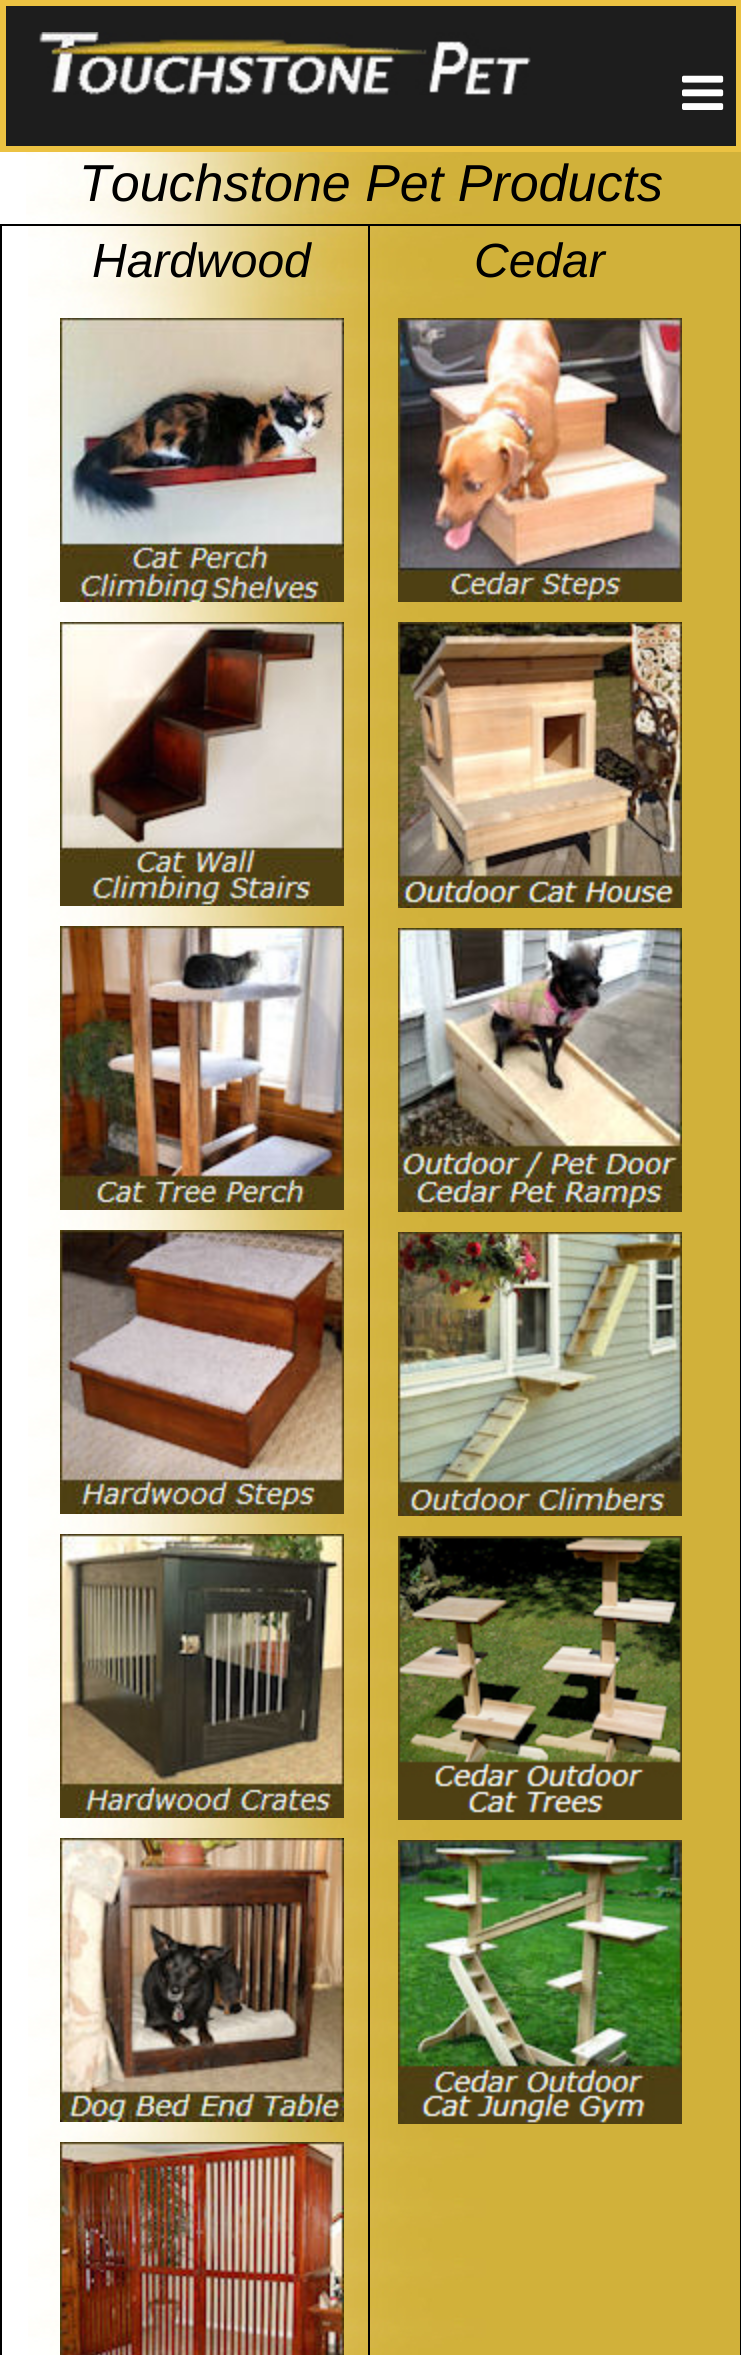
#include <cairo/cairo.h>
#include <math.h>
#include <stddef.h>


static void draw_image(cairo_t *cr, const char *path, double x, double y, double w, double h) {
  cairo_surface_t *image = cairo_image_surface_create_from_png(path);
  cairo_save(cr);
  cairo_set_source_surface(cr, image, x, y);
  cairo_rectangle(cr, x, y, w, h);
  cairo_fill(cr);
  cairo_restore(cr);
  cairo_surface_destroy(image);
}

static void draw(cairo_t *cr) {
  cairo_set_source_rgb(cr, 1, 1, 1);
  cairo_paint(cr);
  cairo_rectangle(cr, 3, 3, 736, 146);
  cairo_set_source_rgb(cr, 236 / 255.0, 194 / 255.0, 66 / 255.0);
  cairo_set_line_width(cr, 6);
  cairo_stroke(cr);
  cairo_set_source_rgb(cr, 29 / 255.0, 29 / 255.0, 29 / 255.0);
  cairo_rectangle(cr, 6, 6, 730, 140);
  cairo_fill(cr);
  draw_image(cr, "images/1.png", 39, 32, 492, 63);
  draw_image(cr, "images/2.png", 682, 75, 42, 35);
  draw_image(cr, "images/3.png", 26, 152, 715, 72);
  draw_image(cr, "images/4.png", 28, 226, 712, 2129);
  cairo_rectangle(cr, 1, 225, 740, 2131);
  cairo_set_source_rgb(cr, 0, 0, 0);
  cairo_set_line_width(cr, 2);
  cairo_stroke(cr);
  cairo_rectangle(cr, 368, 226, 2, 2129);
  cairo_fill(cr);
  draw_image(cr, "images/5.png", 60, 318, 284, 284);
  draw_image(cr, "images/6.png", 60, 622, 284, 284);
  draw_image(cr, "images/7.png", 60, 926, 284, 284);
  draw_image(cr, "images/8.png", 60, 1230, 284, 284);
  draw_image(cr, "images/9.png", 60, 1534, 284, 284);
  draw_image(cr, "images/10.png", 60, 1838, 284, 284);
  draw_image(cr, "images/11.png", 60, 2142, 284, 213);
  draw_image(cr, "images/12.png", 398, 318, 284, 284);
  draw_image(cr, "images/13.png", 398, 622, 284, 286);
  draw_image(cr, "images/14.png", 398, 928, 284, 284);
  draw_image(cr, "images/15.png", 398, 1232, 284, 284);
  draw_image(cr, "images/16.png", 398, 1536, 284, 284);
  draw_image(cr, "images/17.png", 398, 1840, 284, 284);
  cairo_select_font_face(cr, "Liberation Sans", CAIRO_FONT_SLANT_ITALIC, CAIRO_FONT_WEIGHT_NORMAL);
  cairo_set_font_size(cr, 52);
  cairo_move_to(cr, 79, 201);
  cairo_show_text(cr, "Touchstone Pet Products");
  cairo_set_font_size(cr, 48);
  cairo_move_to(cr, 92, 277);
  cairo_show_text(cr, "Hardwood");
  cairo_move_to(cr, 474, 277);
  cairo_show_text(cr, "Cedar");
}

int main(void) {
  cairo_surface_t *surface = cairo_image_surface_create(CAIRO_FORMAT_RGB24, 741, 2355);
  cairo_t *cr = cairo_create(surface);
  cairo_font_options_t *options = cairo_font_options_create();
  cairo_font_options_set_hint_metrics(options, CAIRO_HINT_METRICS_OFF);
  cairo_font_options_set_hint_style(options, CAIRO_HINT_STYLE_NONE);
  cairo_set_font_options(cr, options);
  cairo_set_miter_limit(cr, 4);
  draw(cr);
  cairo_surface_write_to_png(surface, "out.png");
  cairo_font_options_destroy(options);
  cairo_destroy(cr);
  cairo_surface_destroy(surface);
  return 0;
}
